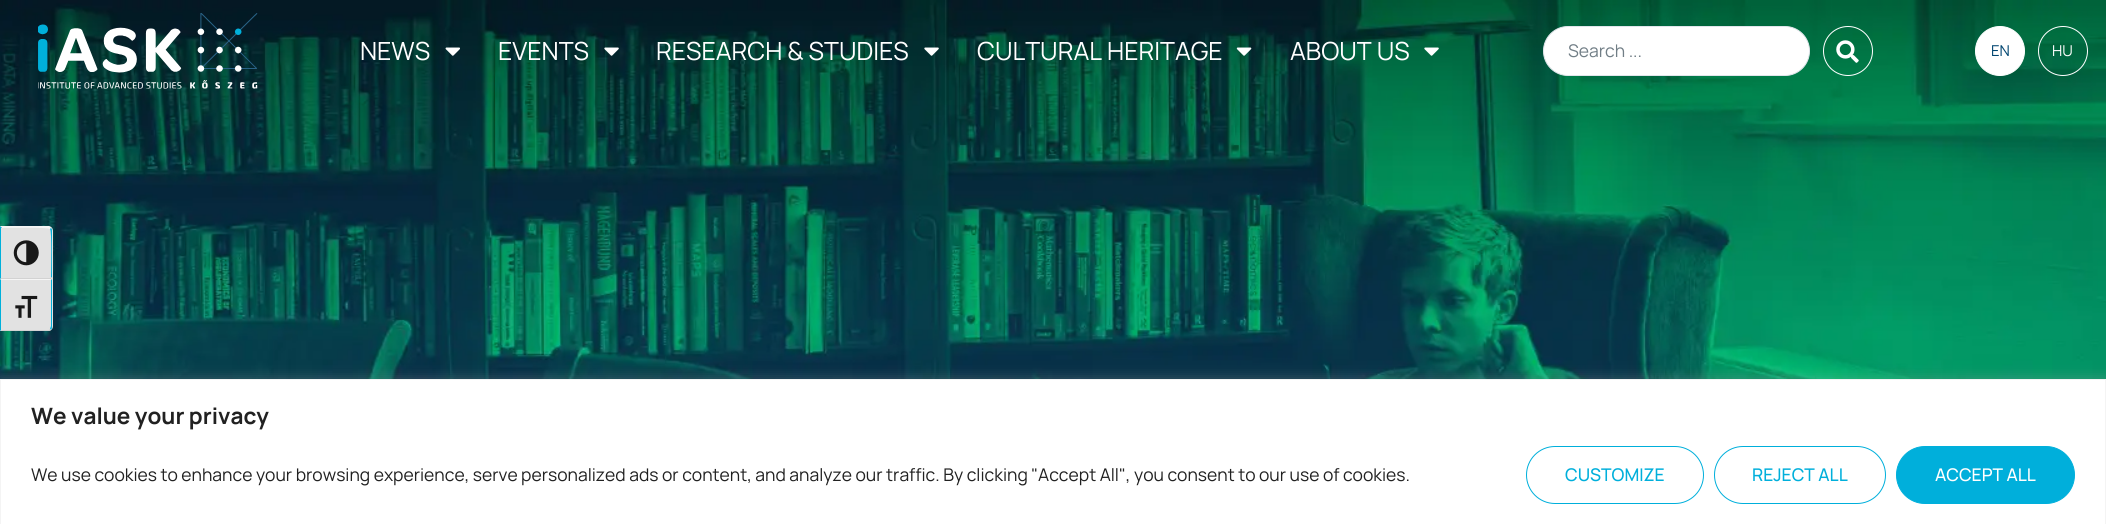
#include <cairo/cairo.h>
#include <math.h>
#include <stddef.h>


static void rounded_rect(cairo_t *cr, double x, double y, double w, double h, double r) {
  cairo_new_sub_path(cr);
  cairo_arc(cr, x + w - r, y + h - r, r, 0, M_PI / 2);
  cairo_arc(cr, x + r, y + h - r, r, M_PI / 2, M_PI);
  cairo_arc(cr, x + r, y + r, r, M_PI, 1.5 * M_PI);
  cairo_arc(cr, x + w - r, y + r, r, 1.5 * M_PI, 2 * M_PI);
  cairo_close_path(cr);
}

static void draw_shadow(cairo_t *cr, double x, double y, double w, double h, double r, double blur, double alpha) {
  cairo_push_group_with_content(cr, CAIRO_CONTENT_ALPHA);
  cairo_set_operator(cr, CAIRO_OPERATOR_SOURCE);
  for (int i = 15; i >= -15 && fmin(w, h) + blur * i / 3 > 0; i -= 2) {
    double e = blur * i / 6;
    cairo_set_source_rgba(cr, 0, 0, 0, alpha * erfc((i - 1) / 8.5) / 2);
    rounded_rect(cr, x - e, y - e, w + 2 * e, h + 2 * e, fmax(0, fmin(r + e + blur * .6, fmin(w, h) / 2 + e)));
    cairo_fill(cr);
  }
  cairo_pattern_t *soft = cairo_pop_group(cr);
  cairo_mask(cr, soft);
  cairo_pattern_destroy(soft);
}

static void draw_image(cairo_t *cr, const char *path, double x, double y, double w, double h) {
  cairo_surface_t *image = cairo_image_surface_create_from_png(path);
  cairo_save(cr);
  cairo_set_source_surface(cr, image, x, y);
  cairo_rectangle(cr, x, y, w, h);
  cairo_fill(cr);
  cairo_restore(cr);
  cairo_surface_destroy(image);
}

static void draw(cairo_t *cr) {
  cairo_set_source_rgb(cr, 1, 1, 1);
  cairo_paint(cr);
  draw_image(cr, "images/1.png", 0, 0, 2106, 379);
  draw_image(cr, "images/2.png", 38, 13, 220, 76);
  draw_image(cr, "images/3.png", 445, 47, 15, 9);
  draw_image(cr, "images/4.png", 604, 47, 15, 9);
  draw_image(cr, "images/5.png", 924, 47, 15, 9);
  draw_image(cr, "images/6.png", 1236, 47, 16, 9);
  draw_image(cr, "images/7.png", 1424, 47, 15, 9);
  cairo_set_source_rgb(cr, 1, 1, 1);
  rounded_rect(cr, 1543.5, 26.5, 266, 49, 24.5);
  cairo_fill_preserve(cr);
  cairo_set_source_rgb(cr, 225 / 255.0, 229 / 255.0, 235 / 255.0);
  cairo_set_line_width(cr, 1);
  cairo_stroke(cr);
  cairo_arc(cr, 1848, 51, 24.5, 0, 2 * M_PI);
  cairo_set_source_rgb(cr, 1, 1, 1);
  cairo_stroke(cr);
  draw_image(cr, "images/8.png", 1836, 40, 23, 23);
  cairo_arc(cr, 2000, 51, 24.5, 0, 2 * M_PI);
  cairo_fill_preserve(cr);
  cairo_stroke(cr);
  cairo_arc(cr, 2063, 51, 24.5, 0, 2 * M_PI);
  cairo_stroke(cr);
  cairo_set_source_rgb(cr, 226 / 255.0, 226 / 255.0, 226 / 255.0);
  cairo_new_path(cr);
  cairo_move_to(cr, 0, 226);
  cairo_line_to(cr, 48, 226);
  cairo_curve_to(cr, 51, 226, 53, 228, 53, 231);
  cairo_line_to(cr, 53, 279);
  cairo_line_to(cr, 0, 279);
  cairo_close_path(cr);
  cairo_fill(cr);
  cairo_set_source_rgb(cr, 245 / 255.0, 245 / 255.0, 245 / 255.0);
  cairo_new_path(cr);
  cairo_move_to(cr, 0, 226);
  cairo_line_to(cr, 49, 226);
  cairo_line_to(cr, 51, 228);
  cairo_line_to(cr, 50, 229);
  cairo_curve_to(cr, 48, 227, 8, 228, 2, 228);
  cairo_close_path(cr);
  cairo_fill(cr);
  cairo_set_source_rgb(cr, 0, 176 / 255.0, 219 / 255.0);
  cairo_new_path(cr);
  cairo_move_to(cr, 51, 228);
  cairo_curve_to(cr, 52, 229, 52, 230, 52, 231);
  cairo_line_to(cr, 52, 278);
  cairo_line_to(cr, 51, 277);
  cairo_curve_to(cr, 51, 272, 52, 230, 50, 229);
  cairo_close_path(cr);
  cairo_fill(cr);
  cairo_set_source_rgb(cr, 210 / 255.0, 210 / 255.0, 210 / 255.0);
  cairo_new_path(cr);
  cairo_move_to(cr, 52, 279);
  cairo_line_to(cr, 0, 279);
  cairo_line_to(cr, 1, 278);
  cairo_line_to(cr, 51, 278);
  cairo_line_to(cr, 51, 277);
  cairo_close_path(cr);
  cairo_fill(cr);
  cairo_set_source_rgb(cr, 0, 176 / 255.0, 219 / 255.0);
  cairo_new_path(cr);
  cairo_move_to(cr, 1, 228);
  cairo_line_to(cr, 2, 228);
  cairo_line_to(cr, 0, 226);
  cairo_line_to(cr, 0, 279);
  cairo_line_to(cr, 1, 278);
  cairo_close_path(cr);
  cairo_fill(cr);
  draw_image(cr, "images/9.png", 13, 240, 26, 26);
  cairo_set_source_rgb(cr, 226 / 255.0, 226 / 255.0, 226 / 255.0);
  cairo_new_path(cr);
  cairo_move_to(cr, 0, 279);
  cairo_line_to(cr, 53, 279);
  cairo_line_to(cr, 53, 326);
  cairo_curve_to(cr, 53, 329, 51, 331, 48, 331);
  cairo_line_to(cr, 0, 331);
  cairo_close_path(cr);
  cairo_fill(cr);
  cairo_set_source_rgb(cr, 245 / 255.0, 245 / 255.0, 245 / 255.0);
  cairo_new_path(cr);
  cairo_move_to(cr, 52, 279);
  cairo_line_to(cr, 0, 279);
  cairo_line_to(cr, 1, 280);
  cairo_line_to(cr, 51, 280);
  cairo_close_path(cr);
  cairo_fill(cr);
  cairo_set_source_rgb(cr, 0, 176 / 255.0, 219 / 255.0);
  cairo_new_path(cr);
  cairo_move_to(cr, 52, 279);
  cairo_line_to(cr, 52, 326);
  cairo_curve_to(cr, 52, 327, 52, 329, 51, 330);
  cairo_line_to(cr, 50, 329);
  cairo_line_to(cr, 51, 326);
  cairo_line_to(cr, 51, 280);
  cairo_close_path(cr);
  cairo_fill(cr);
  cairo_set_source_rgb(cr, 210 / 255.0, 210 / 255.0, 210 / 255.0);
  cairo_new_path(cr);
  cairo_move_to(cr, 51, 330);
  cairo_line_to(cr, 49, 331);
  cairo_line_to(cr, 0, 331);
  cairo_line_to(cr, 1, 330);
  cairo_line_to(cr, 49, 330);
  cairo_line_to(cr, 50, 329);
  cairo_close_path(cr);
  cairo_fill(cr);
  cairo_set_source_rgb(cr, 0, 176 / 255.0, 219 / 255.0);
  cairo_new_path(cr);
  cairo_move_to(cr, 1, 280);
  cairo_line_to(cr, 1, 330);
  cairo_line_to(cr, 0, 331);
  cairo_line_to(cr, 0, 279);
  cairo_close_path(cr);
  cairo_fill(cr);
  draw_image(cr, "images/10.png", 15, 295, 23, 23);
  cairo_set_source_rgb(cr, 172 / 255.0, 171 / 255.0, 171 / 255.0);
  draw_shadow(cr, 0, 378, 2106, 146, 0, 6, 0.3);
  cairo_set_source_rgb(cr, 1, 1, 1);
  cairo_rectangle(cr, 0.5, 379.5, 2105, 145);
  cairo_fill_preserve(cr);
  cairo_set_source_rgb(cr, 244 / 255.0, 244 / 255.0, 244 / 255.0);
  cairo_stroke(cr);
  rounded_rect(cr, 1526.5, 446.5, 177, 57, 28.5);
  cairo_set_source_rgb(cr, 0, 175 / 255.0, 219 / 255.0);
  cairo_stroke(cr);
  rounded_rect(cr, 1714.5, 446.5, 171, 57, 28.5);
  cairo_stroke(cr);
  rounded_rect(cr, 1896.5, 446.5, 178, 57, 28.5);
  cairo_fill_preserve(cr);
  cairo_stroke(cr);
  cairo_select_font_face(cr, "Manrope", CAIRO_FONT_SLANT_NORMAL, CAIRO_FONT_WEIGHT_NORMAL);
  cairo_set_font_size(cr, 25);
  cairo_set_source_rgb(cr, 1, 1, 1);
  cairo_move_to(cr, 360, 60);
  cairo_show_text(cr, "NEWS");
  cairo_move_to(cr, 498, 60);
  cairo_show_text(cr, "EVENTS");
  cairo_move_to(cr, 656, 60);
  cairo_show_text(cr, "RESEARCH & STUDIES");
  cairo_move_to(cr, 977, 60);
  cairo_show_text(cr, "CULTURAL HERITAGE");
  cairo_move_to(cr, 1290, 60);
  cairo_show_text(cr, "ABOUT US");
  cairo_set_font_size(cr, 17.5);
  cairo_set_source_rgb(cr, 113 / 255.0, 126 / 255.0, 134 / 255.0);
  cairo_move_to(cr, 1568, 57);
  cairo_show_text(cr, "Search ...");
  cairo_set_font_size(cr, 15);
  cairo_set_source_rgb(cr, 0, 69 / 255.0, 112 / 255.0);
  cairo_move_to(cr, 1991, 56);
  cairo_show_text(cr, "EN");
  cairo_set_source_rgb(cr, 1, 1, 1);
  cairo_move_to(cr, 2052, 56);
  cairo_show_text(cr, "HU");
  cairo_select_font_face(cr, "Manrope", CAIRO_FONT_SLANT_NORMAL, CAIRO_FONT_WEIGHT_BOLD);
  cairo_set_font_size(cr, 22.5);
  cairo_set_source_rgb(cr, 33 / 255.0, 33 / 255.0, 33 / 255.0);
  cairo_move_to(cr, 31, 424);
  cairo_show_text(cr, "We value your privacy");
  cairo_select_font_face(cr, "Manrope", CAIRO_FONT_SLANT_NORMAL, CAIRO_FONT_WEIGHT_NORMAL);
  cairo_set_font_size(cr, 17.5);
  cairo_move_to(cr, 31, 481);
  cairo_show_text(cr, "We use cookies to enhance your browsing experience, serve personalized ads or content, and analyze our traffic. By clicking \"Accept All\", you consent to our use of cookies.");
  cairo_select_font_face(cr, "Manrope Medium", CAIRO_FONT_SLANT_NORMAL, CAIRO_FONT_WEIGHT_NORMAL);
  cairo_set_source_rgb(cr, 0, 175 / 255.0, 219 / 255.0);
  cairo_move_to(cr, 1565, 481);
  cairo_show_text(cr, "CUSTOMIZE");
  cairo_move_to(cr, 1752, 481);
  cairo_show_text(cr, "REJECT ALL");
  cairo_set_source_rgb(cr, 1, 1, 1);
  cairo_move_to(cr, 1935, 481);
  cairo_show_text(cr, "ACCEPT ALL");
}

int main(void) {
  cairo_surface_t *surface = cairo_image_surface_create(CAIRO_FORMAT_RGB24, 2106, 524);
  cairo_t *cr = cairo_create(surface);
  cairo_font_options_t *options = cairo_font_options_create();
  cairo_font_options_set_hint_metrics(options, CAIRO_HINT_METRICS_OFF);
  cairo_font_options_set_hint_style(options, CAIRO_HINT_STYLE_NONE);
  cairo_set_font_options(cr, options);
  cairo_set_miter_limit(cr, 4);
  draw(cr);
  cairo_surface_write_to_png(surface, "out.png");
  cairo_font_options_destroy(options);
  cairo_destroy(cr);
  cairo_surface_destroy(surface);
  return 0;
}
